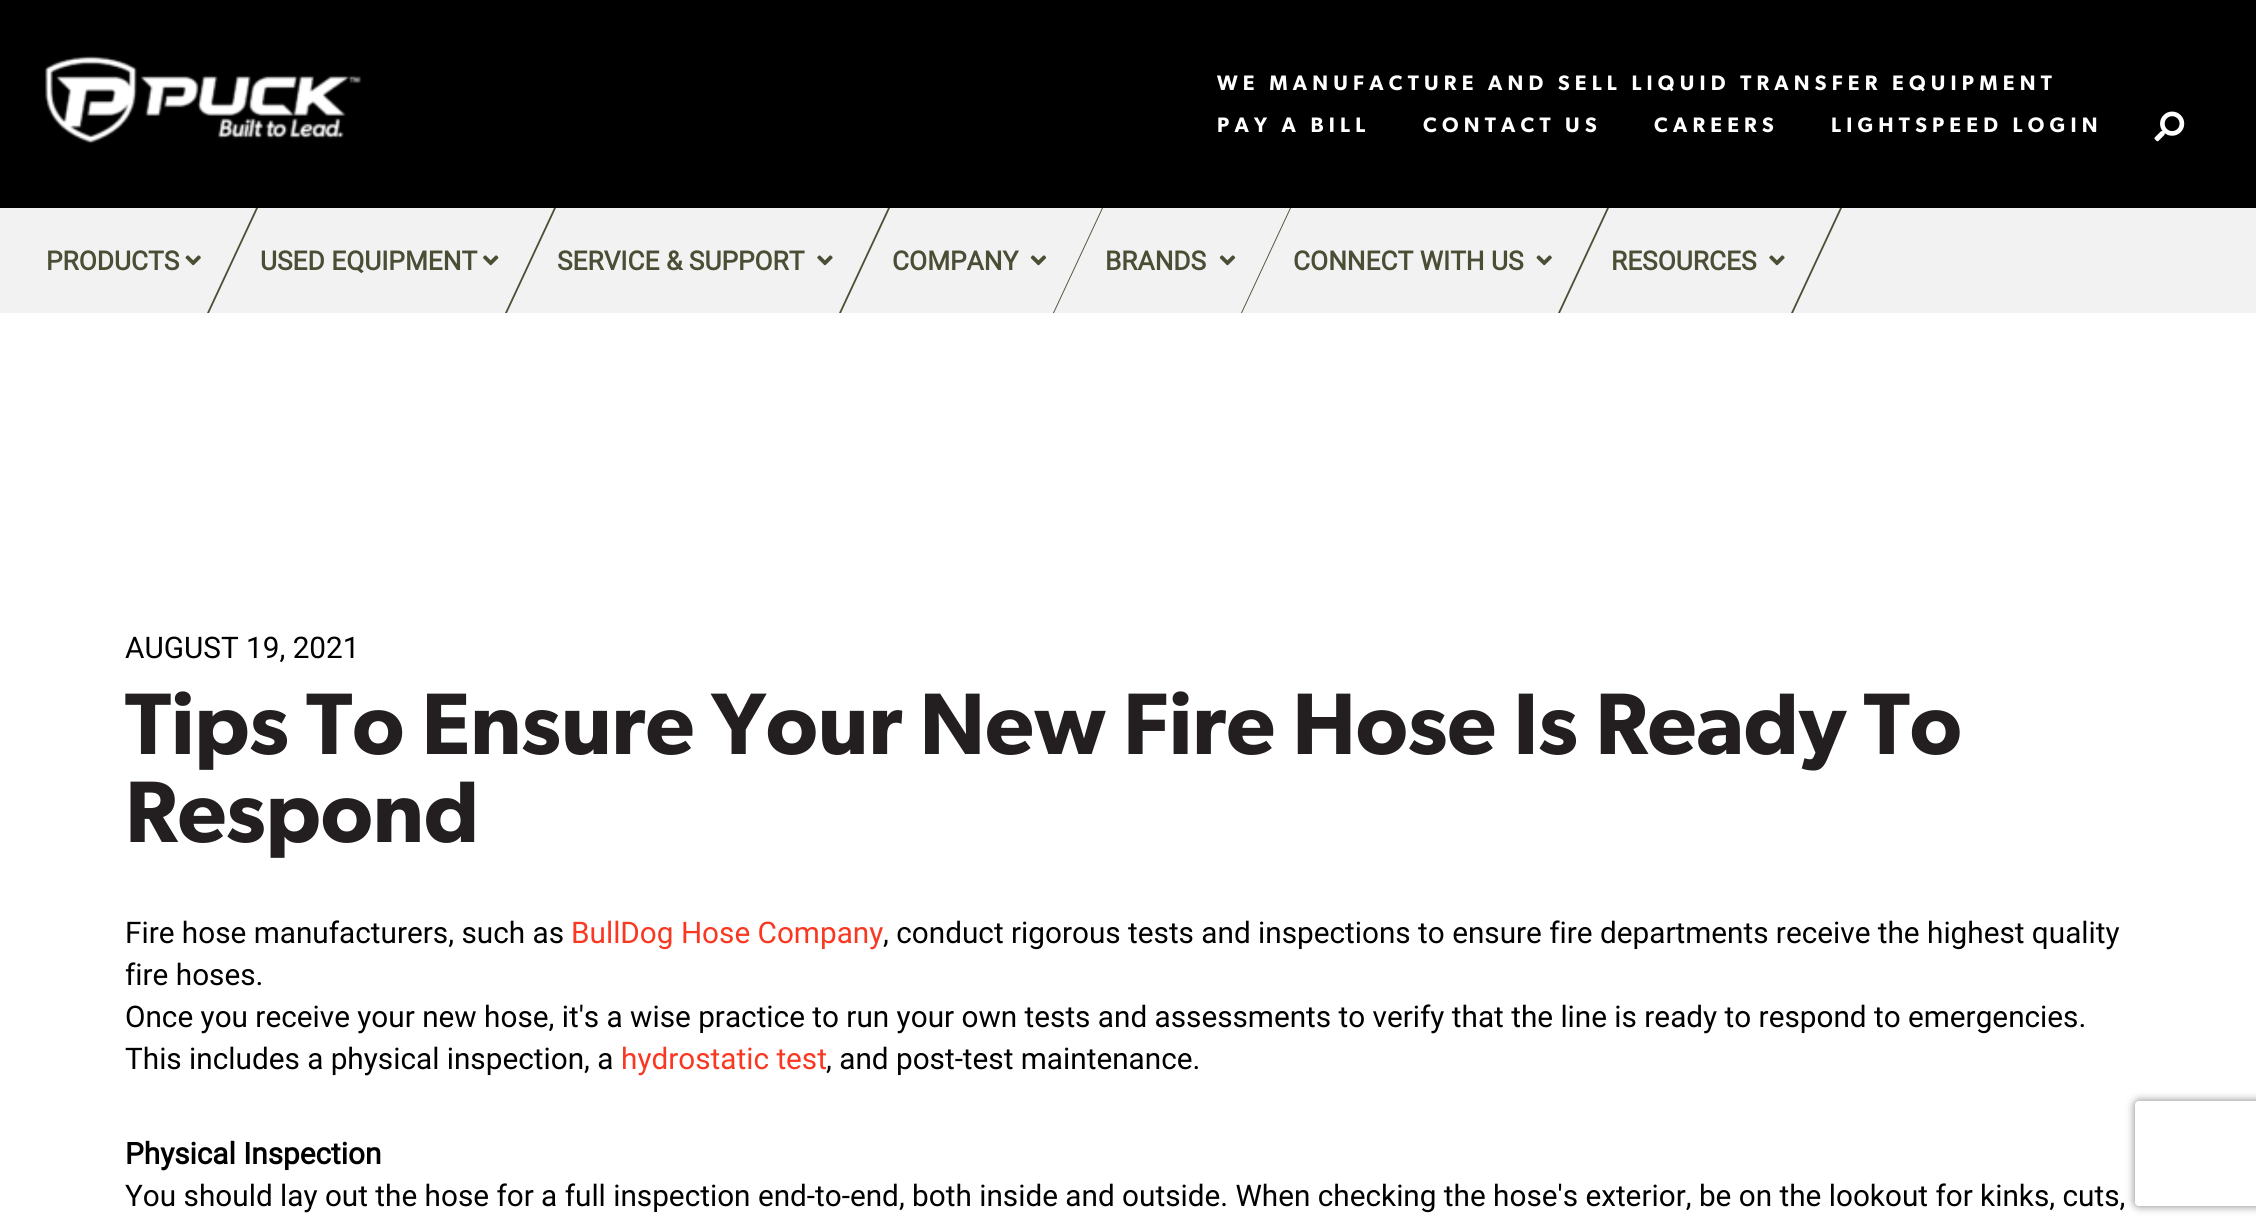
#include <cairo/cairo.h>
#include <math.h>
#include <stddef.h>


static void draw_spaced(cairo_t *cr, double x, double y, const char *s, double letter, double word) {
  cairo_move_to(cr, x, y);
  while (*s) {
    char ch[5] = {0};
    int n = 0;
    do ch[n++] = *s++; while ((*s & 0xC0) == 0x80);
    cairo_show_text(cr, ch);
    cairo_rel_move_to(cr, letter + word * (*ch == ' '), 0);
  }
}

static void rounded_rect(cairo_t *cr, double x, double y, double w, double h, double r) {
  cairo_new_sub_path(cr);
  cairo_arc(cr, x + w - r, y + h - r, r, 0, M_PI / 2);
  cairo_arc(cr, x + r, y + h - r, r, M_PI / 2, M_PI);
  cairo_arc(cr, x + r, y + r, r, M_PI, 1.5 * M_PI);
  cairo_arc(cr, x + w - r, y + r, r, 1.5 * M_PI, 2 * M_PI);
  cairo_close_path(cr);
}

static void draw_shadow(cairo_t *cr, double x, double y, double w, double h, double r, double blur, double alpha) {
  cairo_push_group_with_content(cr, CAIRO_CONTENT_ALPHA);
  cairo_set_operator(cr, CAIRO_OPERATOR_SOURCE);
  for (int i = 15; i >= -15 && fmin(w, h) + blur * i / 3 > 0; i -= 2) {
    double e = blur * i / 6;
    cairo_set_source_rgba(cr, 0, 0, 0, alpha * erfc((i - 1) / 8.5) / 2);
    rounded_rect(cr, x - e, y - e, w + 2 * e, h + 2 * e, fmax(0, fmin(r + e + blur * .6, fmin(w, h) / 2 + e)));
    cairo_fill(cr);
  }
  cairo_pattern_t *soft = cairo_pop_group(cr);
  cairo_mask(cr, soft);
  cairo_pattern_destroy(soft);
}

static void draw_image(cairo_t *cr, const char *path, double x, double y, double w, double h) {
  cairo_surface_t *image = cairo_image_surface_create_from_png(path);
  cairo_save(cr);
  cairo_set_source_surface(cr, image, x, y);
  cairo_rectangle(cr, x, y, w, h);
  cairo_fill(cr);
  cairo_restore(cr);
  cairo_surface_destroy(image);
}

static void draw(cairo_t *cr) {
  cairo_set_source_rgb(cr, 1, 1, 1);
  cairo_paint(cr);
  cairo_set_source_rgb(cr, 0, 0, 0);
  cairo_rectangle(cr, 0, 0, 2256, 208);
  cairo_fill(cr);
  draw_image(cr, "images/1.png", 45, 56, 316, 88);
  draw_image(cr, "images/2.png", 2154, 111, 31, 31);
  cairo_set_source_rgb(cr, 242 / 255.0, 242 / 255.0, 242 / 255.0);
  cairo_rectangle(cr, 0, 208, 2256, 105);
  cairo_fill(cr);
  draw_image(cr, "images/3.png", 185, 255, 16, 11);
  cairo_set_source_rgb(cr, 75 / 255.0, 78 / 255.0, 53 / 255.0);
  cairo_new_path(cr);
  cairo_move_to(cr, 256, 208);
  cairo_line_to(cr, 258, 208);
  cairo_line_to(cr, 209, 313);
  cairo_line_to(cr, 207, 313);
  cairo_close_path(cr);
  cairo_fill(cr);
  draw_image(cr, "images/4.png", 483, 255, 16, 11);
  cairo_new_path(cr);
  cairo_move_to(cr, 554, 208);
  cairo_line_to(cr, 556, 208);
  cairo_line_to(cr, 507, 313);
  cairo_line_to(cr, 505, 313);
  cairo_close_path(cr);
  cairo_fill(cr);
  draw_image(cr, "images/5.png", 817, 255, 16, 11);
  cairo_new_path(cr);
  cairo_move_to(cr, 888, 208);
  cairo_line_to(cr, 890, 208);
  cairo_line_to(cr, 841, 313);
  cairo_line_to(cr, 839, 313);
  cairo_close_path(cr);
  cairo_fill(cr);
  draw_image(cr, "images/6.png", 1030, 255, 17, 11);
  cairo_new_path(cr);
  cairo_move_to(cr, 1102, 208);
  cairo_line_to(cr, 1103, 208);
  cairo_line_to(cr, 1054, 313);
  cairo_line_to(cr, 1053, 313);
  cairo_close_path(cr);
  cairo_fill(cr);
  draw_image(cr, "images/6.png", 1219, 255, 17, 11);
  cairo_new_path(cr);
  cairo_move_to(cr, 1290, 208);
  cairo_line_to(cr, 1291, 208);
  cairo_line_to(cr, 1242, 313);
  cairo_line_to(cr, 1241, 313);
  cairo_close_path(cr);
  cairo_fill(cr);
  draw_image(cr, "images/3.png", 1536, 255, 16, 11);
  cairo_new_path(cr);
  cairo_move_to(cr, 1607, 208);
  cairo_line_to(cr, 1609, 208);
  cairo_line_to(cr, 1560, 313);
  cairo_line_to(cr, 1558, 313);
  cairo_close_path(cr);
  cairo_fill(cr);
  draw_image(cr, "images/5.png", 1769, 255, 16, 11);
  cairo_new_path(cr);
  cairo_move_to(cr, 1840, 208);
  cairo_line_to(cr, 1842, 208);
  cairo_line_to(cr, 1793, 313);
  cairo_line_to(cr, 1791, 313);
  cairo_close_path(cr);
  cairo_fill(cr);
  cairo_save(cr);
  cairo_set_fill_rule(cr, CAIRO_FILL_RULE_EVEN_ODD);
  cairo_new_path(cr);
  cairo_move_to(cr, 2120, 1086);
  cairo_line_to(cr, 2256, 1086);
  cairo_line_to(cr, 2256, 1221);
  cairo_line_to(cr, 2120, 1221);
  cairo_close_path(cr);
  cairo_move_to(cr, 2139, 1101);
  cairo_line_to(cr, 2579, 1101);
  cairo_curve_to(cr, 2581, 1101, 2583, 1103, 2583, 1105);
  cairo_line_to(cr, 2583, 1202);
  cairo_curve_to(cr, 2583, 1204, 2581, 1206, 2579, 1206);
  cairo_line_to(cr, 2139, 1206);
  cairo_curve_to(cr, 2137, 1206, 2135, 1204, 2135, 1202);
  cairo_line_to(cr, 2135, 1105);
  cairo_curve_to(cr, 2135, 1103, 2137, 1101, 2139, 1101);
  cairo_close_path(cr);
  cairo_clip(cr);
  cairo_set_source_rgb(cr, 128 / 255.0, 128 / 255.0, 128 / 255.0);
  draw_shadow(cr, 2135, 1101, 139, 105, 4, 4.5, 1);
  cairo_restore(cr);
  cairo_select_font_face(cr, "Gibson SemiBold", CAIRO_FONT_SLANT_NORMAL, CAIRO_FONT_WEIGHT_NORMAL);
  cairo_set_font_size(cr, 21);
  cairo_set_source_rgb(cr, 1, 1, 1);
  draw_spaced(cr, 1217, 90, "WE MANUFACTURE AND SELL LIQUID TRANSFER EQUIPMENT", 5.25, 0);
  draw_spaced(cr, 1217, 132, "PAY A BILL", 5.25, 0);
  draw_spaced(cr, 1423, 132, "CONTACT US", 5.25, 0);
  draw_spaced(cr, 1654, 132, "CAREERS", 5.25, 0);
  draw_spaced(cr, 1831, 132, "LIGHTSPEED LOGIN", 5.25, 0);
  cairo_select_font_face(cr, "Roboto", CAIRO_FONT_SLANT_NORMAL, CAIRO_FONT_WEIGHT_BOLD);
  cairo_set_font_size(cr, 26.25);
  cairo_set_source_rgb(cr, 75 / 255.0, 78 / 255.0, 53 / 255.0);
  cairo_move_to(cr, 46, 270);
  cairo_show_text(cr, "PRODUCTS");
  cairo_move_to(cr, 260, 270);
  cairo_show_text(cr, "USED EQUIPMENT");
  cairo_move_to(cr, 557, 270);
  cairo_show_text(cr, "SERVICE & SUPPORT");
  cairo_move_to(cr, 892, 270);
  cairo_show_text(cr, "COMPANY");
  cairo_move_to(cr, 1105, 270);
  cairo_show_text(cr, "BRANDS");
  cairo_move_to(cr, 1293, 270);
  cairo_show_text(cr, "CONNECT WITH US");
  cairo_move_to(cr, 1611, 270);
  cairo_show_text(cr, "RESOURCES");
  cairo_select_font_face(cr, "Roboto", CAIRO_FONT_SLANT_NORMAL, CAIRO_FONT_WEIGHT_NORMAL);
  cairo_set_font_size(cr, 29.75);
  cairo_set_source_rgb(cr, 0, 0, 0);
  cairo_move_to(cr, 125, 658);
  cairo_show_text(cr, "AUGUST 19, 2021");
  cairo_select_font_face(cr, "Gibson SemiBold", CAIRO_FONT_SLANT_NORMAL, CAIRO_FONT_WEIGHT_NORMAL);
  cairo_set_font_size(cr, 87.5);
  cairo_set_source_rgb(cr, 35 / 255.0, 31 / 255.0, 32 / 255.0);
  cairo_move_to(cr, 125, 754);
  cairo_show_text(cr, "Tips To Ensure Your New Fire Hose Is Ready To");
  cairo_move_to(cr, 125, 842);
  cairo_show_text(cr, "Respond");
  cairo_select_font_face(cr, "Roboto", CAIRO_FONT_SLANT_NORMAL, CAIRO_FONT_WEIGHT_NORMAL);
  cairo_set_font_size(cr, 29.75);
  cairo_set_source_rgb(cr, 0, 0, 0);
  cairo_move_to(cr, 125, 943);
  cairo_show_text(cr, "Fire hose manufacturers, such as");
  cairo_set_source_rgb(cr, 249 / 255.0, 56 / 255.0, 34 / 255.0);
  cairo_move_to(cr, 571, 943);
  cairo_show_text(cr, "BullDog Hose Company");
  cairo_set_source_rgb(cr, 0, 0, 0);
  cairo_move_to(cr, 883, 943);
  cairo_show_text(cr, ", conduct rigorous tests and inspections to ensure fire departments receive the highest quality");
  cairo_move_to(cr, 125, 985);
  cairo_show_text(cr, "fire hoses.");
  cairo_move_to(cr, 125, 1027);
  cairo_show_text(cr, "Once you receive your new hose, it's a wise practice to run your own tests and assessments to verify that the line is ready to respond to emergencies.");
  cairo_move_to(cr, 125, 1069);
  cairo_show_text(cr, "This includes a physical inspection, a");
  cairo_set_source_rgb(cr, 249 / 255.0, 56 / 255.0, 34 / 255.0);
  cairo_move_to(cr, 621, 1069);
  cairo_show_text(cr, "hydrostatic test");
  cairo_set_source_rgb(cr, 0, 0, 0);
  cairo_move_to(cr, 826, 1069);
  cairo_show_text(cr, ", and post-test maintenance.");
  cairo_select_font_face(cr, "Roboto", CAIRO_FONT_SLANT_NORMAL, CAIRO_FONT_WEIGHT_BOLD);
  cairo_move_to(cr, 125, 1164);
  cairo_show_text(cr, "Physical Inspection");
  cairo_select_font_face(cr, "Roboto", CAIRO_FONT_SLANT_NORMAL, CAIRO_FONT_WEIGHT_NORMAL);
  cairo_move_to(cr, 125, 1206);
  cairo_show_text(cr, "You should lay out the hose for a full inspection end-to-end, both inside and outside. When checking the hose's exterior, be on the lookout for kinks, cuts,");
}

int main(void) {
  cairo_surface_t *surface = cairo_image_surface_create(CAIRO_FORMAT_RGB24, 2256, 1229);
  cairo_t *cr = cairo_create(surface);
  cairo_font_options_t *options = cairo_font_options_create();
  cairo_font_options_set_hint_metrics(options, CAIRO_HINT_METRICS_OFF);
  cairo_font_options_set_hint_style(options, CAIRO_HINT_STYLE_NONE);
  cairo_set_font_options(cr, options);
  cairo_set_miter_limit(cr, 4);
  draw(cr);
  cairo_surface_write_to_png(surface, "out.png");
  cairo_font_options_destroy(options);
  cairo_destroy(cr);
  cairo_surface_destroy(surface);
  return 0;
}
